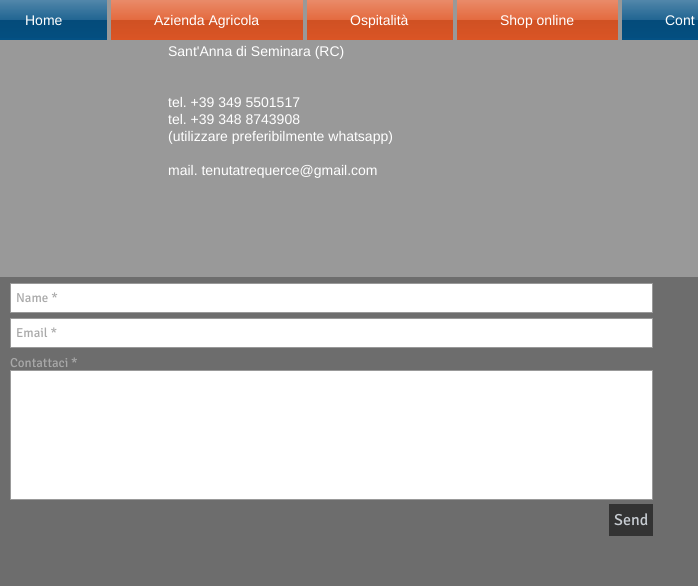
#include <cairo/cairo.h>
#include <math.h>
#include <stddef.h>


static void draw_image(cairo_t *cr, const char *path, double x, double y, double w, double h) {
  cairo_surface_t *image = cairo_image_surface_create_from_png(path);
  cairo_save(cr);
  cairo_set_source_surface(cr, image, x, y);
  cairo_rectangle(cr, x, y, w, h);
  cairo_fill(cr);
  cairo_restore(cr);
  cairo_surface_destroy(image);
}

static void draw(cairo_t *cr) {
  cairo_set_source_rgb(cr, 153 / 255.0, 153 / 255.0, 153 / 255.0);
  cairo_paint(cr);
  cairo_set_source_rgb(cr, 4 / 255.0, 81 / 255.0, 132 / 255.0);
  cairo_rectangle(cr, 0, 0, 107, 40);
  cairo_fill(cr);
  draw_image(cr, "images/1.png", 0, 0, 107, 38);
  cairo_set_source_rgb(cr, 224 / 255.0, 87 / 255.0, 38 / 255.0);
  cairo_rectangle(cr, 111, 0, 192, 40);
  cairo_fill(cr);
  draw_image(cr, "images/2.png", 111, 0, 192, 40);
  cairo_rectangle(cr, 307, 0, 146, 40);
  cairo_fill(cr);
  draw_image(cr, "images/3.png", 307, 0, 146, 40);
  cairo_rectangle(cr, 457, 0, 161, 40);
  cairo_fill(cr);
  draw_image(cr, "images/4.png", 457, 0, 161, 40);
  cairo_set_source_rgb(cr, 4 / 255.0, 81 / 255.0, 132 / 255.0);
  cairo_rectangle(cr, 622, 0, 76, 40);
  cairo_fill(cr);
  draw_image(cr, "images/5.png", 622, 0, 76, 38);
  cairo_set_source_rgb(cr, 109 / 255.0, 109 / 255.0, 109 / 255.0);
  cairo_rectangle(cr, 0, 277, 698, 309);
  cairo_fill(cr);
  cairo_set_source_rgb(cr, 1, 1, 1);
  cairo_rectangle(cr, 10.5, 283.5, 642, 29);
  cairo_fill_preserve(cr);
  cairo_set_source_rgb(cr, 153 / 255.0, 153 / 255.0, 153 / 255.0);
  cairo_set_line_width(cr, 1);
  cairo_stroke(cr);
  cairo_set_source_rgb(cr, 1, 1, 1);
  cairo_rectangle(cr, 10.5, 318.5, 642, 29);
  cairo_fill_preserve(cr);
  cairo_set_source_rgb(cr, 153 / 255.0, 153 / 255.0, 153 / 255.0);
  cairo_stroke(cr);
  cairo_set_source_rgb(cr, 1, 1, 1);
  cairo_rectangle(cr, 10.5, 370.5, 642, 129);
  cairo_fill_preserve(cr);
  cairo_set_source_rgb(cr, 153 / 255.0, 153 / 255.0, 153 / 255.0);
  cairo_stroke(cr);
  cairo_set_source_rgb(cr, 51 / 255.0, 51 / 255.0, 51 / 255.0);
  cairo_rectangle(cr, 609, 504, 44, 32);
  cairo_fill(cr);
  cairo_select_font_face(cr, "Liberation Sans", CAIRO_FONT_SLANT_NORMAL, CAIRO_FONT_WEIGHT_NORMAL);
  cairo_set_font_size(cr, 14);
  cairo_set_source_rgb(cr, 1, 1, 1);
  cairo_move_to(cr, 25, 25);
  cairo_show_text(cr, "Home");
  cairo_move_to(cr, 154, 25);
  cairo_show_text(cr, "Azienda Agricola");
  cairo_move_to(cr, 350, 25);
  cairo_show_text(cr, "Ospitalità");
  cairo_move_to(cr, 500, 25);
  cairo_show_text(cr, "Shop online");
  cairo_move_to(cr, 665, 25);
  cairo_show_text(cr, "Cont");
  cairo_move_to(cr, 168, 56);
  cairo_show_text(cr, "Sant'Anna di Seminara (RC)");
  cairo_move_to(cr, 168, 107);
  cairo_show_text(cr, "tel. +39 349 5501517");
  cairo_move_to(cr, 168, 124);
  cairo_show_text(cr, "tel. +39 348 8743908");
  cairo_move_to(cr, 168, 141);
  cairo_show_text(cr, "(utilizzare preferibilmente whatsapp)");
  cairo_move_to(cr, 168, 175);
  cairo_show_text(cr, "mail. tenutatrequerce@gmail.com");
  cairo_select_font_face(cr, "Signika", CAIRO_FONT_SLANT_NORMAL, CAIRO_FONT_WEIGHT_NORMAL);
  cairo_set_font_size(cr, 13);
  cairo_set_source_rgb(cr, 169 / 255.0, 169 / 255.0, 169 / 255.0);
  cairo_move_to(cr, 16, 302);
  cairo_show_text(cr, "Name *");
  cairo_move_to(cr, 16, 337);
  cairo_show_text(cr, "Email *");
  cairo_move_to(cr, 10, 367);
  cairo_show_text(cr, "Contattaci *");
  cairo_set_font_size(cr, 16);
  cairo_set_source_rgb(cr, 199 / 255.0, 204 / 255.0, 210 / 255.0);
  cairo_move_to(cr, 614, 525);
  cairo_show_text(cr, "Send");
}

int main(void) {
  cairo_surface_t *surface = cairo_image_surface_create(CAIRO_FORMAT_RGB24, 698, 586);
  cairo_t *cr = cairo_create(surface);
  cairo_font_options_t *options = cairo_font_options_create();
  cairo_font_options_set_hint_metrics(options, CAIRO_HINT_METRICS_OFF);
  cairo_font_options_set_hint_style(options, CAIRO_HINT_STYLE_NONE);
  cairo_set_font_options(cr, options);
  cairo_set_miter_limit(cr, 4);
  draw(cr);
  cairo_surface_write_to_png(surface, "out.png");
  cairo_font_options_destroy(options);
  cairo_destroy(cr);
  cairo_surface_destroy(surface);
  return 0;
}
